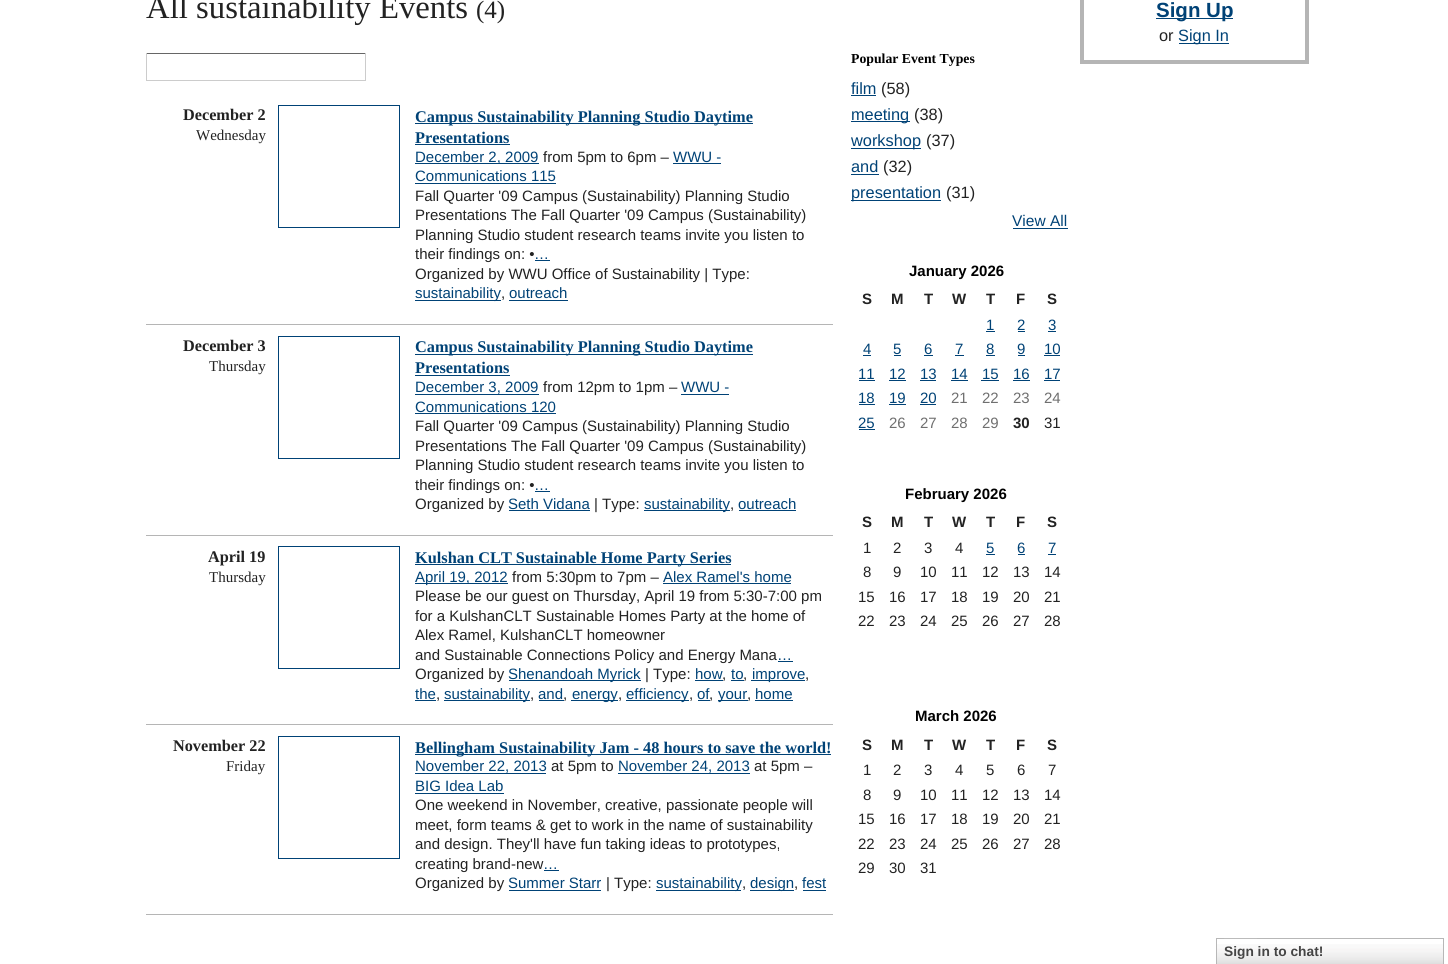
#include <cairo/cairo.h>
#include <math.h>
#include <stddef.h>


static void draw_image(cairo_t *cr, const char *path, double x, double y, double w, double h) {
  cairo_surface_t *image = cairo_image_surface_create_from_png(path);
  cairo_save(cr);
  cairo_set_source_surface(cr, image, x, y);
  cairo_rectangle(cr, x, y, w, h);
  cairo_fill(cr);
  cairo_restore(cr);
  cairo_surface_destroy(image);
}

static void draw(cairo_t *cr) {
  cairo_set_source_rgb(cr, 1, 1, 1);
  cairo_paint(cr);
  cairo_set_source_rgb(cr, 102 / 255.0, 102 / 255.0, 102 / 255.0);
  cairo_rectangle(cr, 146, 53, 220, 1);
  cairo_fill(cr);
  cairo_set_source_rgb(cr, 204 / 255.0, 204 / 255.0, 204 / 255.0);
  cairo_rectangle(cr, 365, 53, 1, 28);
  cairo_fill(cr);
  cairo_rectangle(cr, 146, 80, 220, 1);
  cairo_fill(cr);
  cairo_rectangle(cr, 146, 53, 1, 28);
  cairo_fill(cr);
  cairo_set_source_rgb(cr, 181 / 255.0, 181 / 255.0, 181 / 255.0);
  cairo_rectangle(cr, 146, 324, 687, 1);
  cairo_fill(cr);
  cairo_rectangle(cr, 278.5, 105.5, 121, 122);
  cairo_set_source_rgb(cr, 0, 66 / 255.0, 118 / 255.0);
  cairo_set_line_width(cr, 1);
  cairo_stroke(cr);
  cairo_rectangle(cr, 415, 123, 338, 1);
  cairo_fill(cr);
  cairo_rectangle(cr, 415, 144, 95, 1);
  cairo_fill(cr);
  cairo_rectangle(cr, 415, 163, 124, 1);
  cairo_fill(cr);
  cairo_rectangle(cr, 673, 163, 48, 1);
  cairo_fill(cr);
  cairo_rectangle(cr, 415, 183, 141, 1);
  cairo_fill(cr);
  cairo_rectangle(cr, 535, 260, 15, 1);
  cairo_fill(cr);
  cairo_rectangle(cr, 415, 300, 86, 1);
  cairo_fill(cr);
  cairo_rectangle(cr, 509, 300, 59, 1);
  cairo_fill(cr);
  cairo_set_source_rgb(cr, 181 / 255.0, 181 / 255.0, 181 / 255.0);
  cairo_rectangle(cr, 146, 535, 687, 1);
  cairo_fill(cr);
  cairo_rectangle(cr, 278.5, 336.5, 121, 122);
  cairo_set_source_rgb(cr, 0, 66 / 255.0, 118 / 255.0);
  cairo_stroke(cr);
  cairo_rectangle(cr, 415, 354, 338, 1);
  cairo_fill(cr);
  cairo_rectangle(cr, 415, 375, 95, 1);
  cairo_fill(cr);
  cairo_rectangle(cr, 415, 394, 124, 1);
  cairo_fill(cr);
  cairo_rectangle(cr, 681, 394, 48, 1);
  cairo_fill(cr);
  cairo_rectangle(cr, 415, 413, 141, 1);
  cairo_fill(cr);
  cairo_rectangle(cr, 535, 491, 15, 1);
  cairo_fill(cr);
  cairo_rectangle(cr, 509, 510, 81, 1);
  cairo_fill(cr);
  cairo_rectangle(cr, 644, 510, 86, 1);
  cairo_fill(cr);
  cairo_rectangle(cr, 739, 510, 57, 1);
  cairo_fill(cr);
  cairo_set_source_rgb(cr, 181 / 255.0, 181 / 255.0, 181 / 255.0);
  cairo_rectangle(cr, 146, 724, 687, 1);
  cairo_fill(cr);
  cairo_rectangle(cr, 278.5, 546.5, 121, 122);
  cairo_set_source_rgb(cr, 0, 66 / 255.0, 118 / 255.0);
  cairo_stroke(cr);
  cairo_rectangle(cr, 415, 564, 316, 1);
  cairo_fill(cr);
  cairo_rectangle(cr, 415, 583, 93, 1);
  cairo_fill(cr);
  cairo_rectangle(cr, 663, 583, 128, 1);
  cairo_fill(cr);
  cairo_rectangle(cr, 778, 661, 15, 1);
  cairo_fill(cr);
  cairo_rectangle(cr, 509, 680, 132, 1);
  cairo_fill(cr);
  cairo_rectangle(cr, 695, 680, 28, 1);
  cairo_fill(cr);
  cairo_rectangle(cr, 731, 680, 13, 1);
  cairo_fill(cr);
  cairo_rectangle(cr, 751, 680, 54, 1);
  cairo_fill(cr);
  cairo_rectangle(cr, 415, 700, 21, 1);
  cairo_fill(cr);
  cairo_rectangle(cr, 444, 700, 86, 1);
  cairo_fill(cr);
  cairo_rectangle(cr, 539, 700, 25, 1);
  cairo_fill(cr);
  cairo_rectangle(cr, 571, 700, 47, 1);
  cairo_fill(cr);
  cairo_rectangle(cr, 626, 700, 63, 1);
  cairo_fill(cr);
  cairo_rectangle(cr, 698, 700, 12, 1);
  cairo_fill(cr);
  cairo_rectangle(cr, 718, 700, 30, 1);
  cairo_fill(cr);
  cairo_rectangle(cr, 755, 700, 38, 1);
  cairo_fill(cr);
  cairo_set_source_rgb(cr, 181 / 255.0, 181 / 255.0, 181 / 255.0);
  cairo_rectangle(cr, 146, 914, 687, 1);
  cairo_fill(cr);
  cairo_rectangle(cr, 278.5, 736.5, 121, 122);
  cairo_set_source_rgb(cr, 0, 66 / 255.0, 118 / 255.0);
  cairo_stroke(cr);
  cairo_rectangle(cr, 415, 754, 416, 1);
  cairo_fill(cr);
  cairo_rectangle(cr, 415, 773, 131, 1);
  cairo_fill(cr);
  cairo_rectangle(cr, 618, 773, 132, 1);
  cairo_fill(cr);
  cairo_rectangle(cr, 415, 793, 89, 1);
  cairo_fill(cr);
  cairo_rectangle(cr, 544, 870, 15, 1);
  cairo_fill(cr);
  cairo_rectangle(cr, 509, 890, 92, 1);
  cairo_fill(cr);
  cairo_rectangle(cr, 656, 890, 85, 1);
  cairo_fill(cr);
  cairo_rectangle(cr, 750, 890, 44, 1);
  cairo_fill(cr);
  cairo_rectangle(cr, 803, 890, 23, 1);
  cairo_fill(cr);
  cairo_rectangle(cr, 851, 95, 25, 1);
  cairo_fill(cr);
  cairo_rectangle(cr, 851, 121, 59, 1);
  cairo_fill(cr);
  cairo_rectangle(cr, 851, 148, 70, 1);
  cairo_fill(cr);
  cairo_rectangle(cr, 851, 174, 28, 1);
  cairo_fill(cr);
  cairo_rectangle(cr, 851, 200, 90, 1);
  cairo_fill(cr);
  cairo_rectangle(cr, 1013, 228, 55, 1);
  cairo_fill(cr);
  cairo_rectangle(cr, 986, 331, 9, 1);
  cairo_fill(cr);
  cairo_rectangle(cr, 1018, 331, 7, 1);
  cairo_fill(cr);
  cairo_rectangle(cr, 1048, 331, 8, 1);
  cairo_fill(cr);
  cairo_rectangle(cr, 863, 355, 8, 1);
  cairo_fill(cr);
  cairo_rectangle(cr, 894, 355, 7, 1);
  cairo_fill(cr);
  cairo_rectangle(cr, 924, 355, 9, 1);
  cairo_fill(cr);
  cairo_rectangle(cr, 955, 355, 9, 1);
  cairo_fill(cr);
  cairo_rectangle(cr, 986, 355, 9, 1);
  cairo_fill(cr);
  cairo_rectangle(cr, 1018, 355, 7, 1);
  cairo_fill(cr);
  cairo_rectangle(cr, 1044, 355, 16, 1);
  cairo_fill(cr);
  cairo_rectangle(cr, 859, 380, 16, 1);
  cairo_fill(cr);
  cairo_rectangle(cr, 889, 380, 17, 1);
  cairo_fill(cr);
  cairo_rectangle(cr, 920, 380, 16, 1);
  cairo_fill(cr);
  cairo_rectangle(cr, 951, 380, 17, 1);
  cairo_fill(cr);
  cairo_rectangle(cr, 981, 380, 18, 1);
  cairo_fill(cr);
  cairo_rectangle(cr, 1013, 380, 17, 1);
  cairo_fill(cr);
  cairo_rectangle(cr, 1044, 380, 16, 1);
  cairo_fill(cr);
  cairo_rectangle(cr, 859, 404, 16, 1);
  cairo_fill(cr);
  cairo_rectangle(cr, 889, 404, 17, 1);
  cairo_fill(cr);
  cairo_rectangle(cr, 920, 404, 16, 1);
  cairo_fill(cr);
  cairo_rectangle(cr, 859, 429, 16, 1);
  cairo_fill(cr);
  cairo_rectangle(cr, 986, 554, 9, 1);
  cairo_fill(cr);
  cairo_rectangle(cr, 1018, 554, 7, 1);
  cairo_fill(cr);
  cairo_rectangle(cr, 1048, 554, 8, 1);
  cairo_fill(cr);
  cairo_rectangle(cr, 1082, -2, 225, 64);
  cairo_set_source_rgb(cr, 181 / 255.0, 181 / 255.0, 181 / 255.0);
  cairo_set_line_width(cr, 4);
  cairo_stroke(cr);
  cairo_set_source_rgb(cr, 0, 66 / 255.0, 118 / 255.0);
  cairo_rectangle(cr, 1156, 18, 77, 1);
  cairo_fill(cr);
  cairo_rectangle(cr, 1179, 43, 50, 1);
  cairo_fill(cr);
  draw_image(cr, "images/1.png", 1217, 944, 226, 20);
  cairo_rectangle(cr, 1216.5, 938.5, 227, 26);
  cairo_set_source_rgb(cr, 183 / 255.0, 183 / 255.0, 183 / 255.0);
  cairo_set_line_width(cr, 1);
  cairo_stroke(cr);
  cairo_set_source_rgb(cr, 187 / 255.0, 187 / 255.0, 187 / 255.0);
  cairo_rectangle(cr, 1224, 938, 33, 1);
  cairo_fill(cr);
  cairo_select_font_face(cr, "Liberation Serif", CAIRO_FONT_SLANT_NORMAL, CAIRO_FONT_WEIGHT_NORMAL);
  cairo_set_font_size(cr, 32.75);
  cairo_set_source_rgb(cr, 34 / 255.0, 34 / 255.0, 34 / 255.0);
  cairo_move_to(cr, 146, 18);
  cairo_show_text(cr, "All sustainability Events");
  cairo_set_font_size(cr, 25);
  cairo_move_to(cr, 476, 18);
  cairo_show_text(cr, "(4)");
  cairo_select_font_face(cr, "Liberation Serif", CAIRO_FONT_SLANT_NORMAL, CAIRO_FONT_WEIGHT_BOLD);
  cairo_set_font_size(cr, 16.25);
  cairo_move_to(cr, 183, 120);
  cairo_show_text(cr, "December 2");
  cairo_select_font_face(cr, "Liberation Serif", CAIRO_FONT_SLANT_NORMAL, CAIRO_FONT_WEIGHT_NORMAL);
  cairo_set_font_size(cr, 15);
  cairo_move_to(cr, 196, 140);
  cairo_show_text(cr, "Wednesday");
  cairo_select_font_face(cr, "Liberation Serif", CAIRO_FONT_SLANT_NORMAL, CAIRO_FONT_WEIGHT_BOLD);
  cairo_set_font_size(cr, 16.35);
  cairo_set_source_rgb(cr, 0, 66 / 255.0, 118 / 255.0);
  cairo_move_to(cr, 415, 122);
  cairo_show_text(cr, "Campus Sustainability Planning Studio Daytime");
  cairo_move_to(cr, 415, 143);
  cairo_show_text(cr, "Presentations");
  cairo_select_font_face(cr, "Liberation Sans", CAIRO_FONT_SLANT_NORMAL, CAIRO_FONT_WEIGHT_NORMAL);
  cairo_set_font_size(cr, 15);
  cairo_move_to(cr, 415, 162);
  cairo_show_text(cr, "December 2, 2009");
  cairo_set_source_rgb(cr, 34 / 255.0, 34 / 255.0, 34 / 255.0);
  cairo_move_to(cr, 543, 162);
  cairo_show_text(cr, "from 5pm to 6pm –");
  cairo_set_source_rgb(cr, 0, 66 / 255.0, 118 / 255.0);
  cairo_move_to(cr, 673, 162);
  cairo_show_text(cr, "WWU -");
  cairo_move_to(cr, 415, 181);
  cairo_show_text(cr, "Communications 115");
  cairo_set_source_rgb(cr, 34 / 255.0, 34 / 255.0, 34 / 255.0);
  cairo_move_to(cr, 415, 201);
  cairo_show_text(cr, "Fall Quarter '09 Campus (Sustainability) Planning Studio");
  cairo_move_to(cr, 415, 220);
  cairo_show_text(cr, "Presentations The Fall Quarter '09 Campus (Sustainability)");
  cairo_move_to(cr, 415, 240);
  cairo_show_text(cr, "Planning Studio student research teams invite you listen to");
  cairo_move_to(cr, 415, 259);
  cairo_show_text(cr, "their findings on: •");
  cairo_set_source_rgb(cr, 0, 66 / 255.0, 118 / 255.0);
  cairo_move_to(cr, 534, 259);
  cairo_show_text(cr, "…");
  cairo_set_source_rgb(cr, 34 / 255.0, 34 / 255.0, 34 / 255.0);
  cairo_move_to(cr, 415, 279);
  cairo_show_text(cr, "Organized by WWU Office of Sustainability | Type:");
  cairo_set_source_rgb(cr, 0, 66 / 255.0, 118 / 255.0);
  cairo_move_to(cr, 415, 298);
  cairo_show_text(cr, "sustainability");
  cairo_set_source_rgb(cr, 34 / 255.0, 34 / 255.0, 34 / 255.0);
  cairo_move_to(cr, 501, 298);
  cairo_show_text(cr, ",");
  cairo_set_source_rgb(cr, 0, 66 / 255.0, 118 / 255.0);
  cairo_move_to(cr, 509, 298);
  cairo_show_text(cr, "outreach");
  cairo_select_font_face(cr, "Liberation Serif", CAIRO_FONT_SLANT_NORMAL, CAIRO_FONT_WEIGHT_BOLD);
  cairo_set_font_size(cr, 16.25);
  cairo_set_source_rgb(cr, 34 / 255.0, 34 / 255.0, 34 / 255.0);
  cairo_move_to(cr, 183, 351);
  cairo_show_text(cr, "December 3");
  cairo_select_font_face(cr, "Liberation Serif", CAIRO_FONT_SLANT_NORMAL, CAIRO_FONT_WEIGHT_NORMAL);
  cairo_set_font_size(cr, 15);
  cairo_move_to(cr, 209, 371);
  cairo_show_text(cr, "Thursday");
  cairo_select_font_face(cr, "Liberation Serif", CAIRO_FONT_SLANT_NORMAL, CAIRO_FONT_WEIGHT_BOLD);
  cairo_set_font_size(cr, 16.35);
  cairo_set_source_rgb(cr, 0, 66 / 255.0, 118 / 255.0);
  cairo_move_to(cr, 415, 352);
  cairo_show_text(cr, "Campus Sustainability Planning Studio Daytime");
  cairo_move_to(cr, 415, 373);
  cairo_show_text(cr, "Presentations");
  cairo_select_font_face(cr, "Liberation Sans", CAIRO_FONT_SLANT_NORMAL, CAIRO_FONT_WEIGHT_NORMAL);
  cairo_set_font_size(cr, 15);
  cairo_move_to(cr, 415, 392);
  cairo_show_text(cr, "December 3, 2009");
  cairo_set_source_rgb(cr, 34 / 255.0, 34 / 255.0, 34 / 255.0);
  cairo_move_to(cr, 543, 392);
  cairo_show_text(cr, "from 12pm to 1pm –");
  cairo_set_source_rgb(cr, 0, 66 / 255.0, 118 / 255.0);
  cairo_move_to(cr, 681, 392);
  cairo_show_text(cr, "WWU -");
  cairo_move_to(cr, 415, 412);
  cairo_show_text(cr, "Communications 120");
  cairo_set_source_rgb(cr, 34 / 255.0, 34 / 255.0, 34 / 255.0);
  cairo_move_to(cr, 415, 431);
  cairo_show_text(cr, "Fall Quarter '09 Campus (Sustainability) Planning Studio");
  cairo_move_to(cr, 415, 451);
  cairo_show_text(cr, "Presentations The Fall Quarter '09 Campus (Sustainability)");
  cairo_move_to(cr, 415, 470);
  cairo_show_text(cr, "Planning Studio student research teams invite you listen to");
  cairo_move_to(cr, 415, 490);
  cairo_show_text(cr, "their findings on: •");
  cairo_set_source_rgb(cr, 0, 66 / 255.0, 118 / 255.0);
  cairo_move_to(cr, 534, 490);
  cairo_show_text(cr, "…");
  cairo_set_source_rgb(cr, 34 / 255.0, 34 / 255.0, 34 / 255.0);
  cairo_move_to(cr, 415, 509);
  cairo_show_text(cr, "Organized by");
  cairo_set_source_rgb(cr, 0, 66 / 255.0, 118 / 255.0);
  cairo_move_to(cr, 508, 509);
  cairo_show_text(cr, "Seth Vidana");
  cairo_set_source_rgb(cr, 34 / 255.0, 34 / 255.0, 34 / 255.0);
  cairo_move_to(cr, 594, 509);
  cairo_show_text(cr, "| Type:");
  cairo_set_source_rgb(cr, 0, 66 / 255.0, 118 / 255.0);
  cairo_move_to(cr, 644, 509);
  cairo_show_text(cr, "sustainability");
  cairo_set_source_rgb(cr, 34 / 255.0, 34 / 255.0, 34 / 255.0);
  cairo_move_to(cr, 730, 509);
  cairo_show_text(cr, ",");
  cairo_set_source_rgb(cr, 0, 66 / 255.0, 118 / 255.0);
  cairo_move_to(cr, 738, 509);
  cairo_show_text(cr, "outreach");
  cairo_select_font_face(cr, "Liberation Serif", CAIRO_FONT_SLANT_NORMAL, CAIRO_FONT_WEIGHT_BOLD);
  cairo_set_font_size(cr, 16.25);
  cairo_set_source_rgb(cr, 34 / 255.0, 34 / 255.0, 34 / 255.0);
  cairo_move_to(cr, 208, 562);
  cairo_show_text(cr, "April 19");
  cairo_select_font_face(cr, "Liberation Serif", CAIRO_FONT_SLANT_NORMAL, CAIRO_FONT_WEIGHT_NORMAL);
  cairo_set_font_size(cr, 15);
  cairo_move_to(cr, 209, 582);
  cairo_show_text(cr, "Thursday");
  cairo_select_font_face(cr, "Liberation Serif", CAIRO_FONT_SLANT_NORMAL, CAIRO_FONT_WEIGHT_BOLD);
  cairo_set_font_size(cr, 16.35);
  cairo_set_source_rgb(cr, 0, 66 / 255.0, 118 / 255.0);
  cairo_move_to(cr, 415, 563);
  cairo_show_text(cr, "Kulshan CLT Sustainable Home Party Series");
  cairo_select_font_face(cr, "Liberation Sans", CAIRO_FONT_SLANT_NORMAL, CAIRO_FONT_WEIGHT_NORMAL);
  cairo_set_font_size(cr, 15);
  cairo_move_to(cr, 415, 582);
  cairo_show_text(cr, "April 19, 2012");
  cairo_set_source_rgb(cr, 34 / 255.0, 34 / 255.0, 34 / 255.0);
  cairo_move_to(cr, 512, 582);
  cairo_show_text(cr, "from 5:30pm to 7pm –");
  cairo_set_source_rgb(cr, 0, 66 / 255.0, 118 / 255.0);
  cairo_move_to(cr, 663, 582);
  cairo_show_text(cr, "Alex Ramel's home");
  cairo_set_source_rgb(cr, 34 / 255.0, 34 / 255.0, 34 / 255.0);
  cairo_move_to(cr, 415, 601);
  cairo_show_text(cr, "Please be our guest on Thursday, April 19 from 5:30-7:00 pm");
  cairo_move_to(cr, 415, 621);
  cairo_show_text(cr, "for a KulshanCLT Sustainable Homes Party at the home of");
  cairo_move_to(cr, 415, 640);
  cairo_show_text(cr, "Alex Ramel, KulshanCLT homeowner");
  cairo_move_to(cr, 415, 660);
  cairo_show_text(cr, "and Sustainable Connections Policy and Energy Mana");
  cairo_set_source_rgb(cr, 0, 66 / 255.0, 118 / 255.0);
  cairo_move_to(cr, 777, 660);
  cairo_show_text(cr, "…");
  cairo_set_source_rgb(cr, 34 / 255.0, 34 / 255.0, 34 / 255.0);
  cairo_move_to(cr, 415, 679);
  cairo_show_text(cr, "Organized by");
  cairo_set_source_rgb(cr, 0, 66 / 255.0, 118 / 255.0);
  cairo_move_to(cr, 508, 679);
  cairo_show_text(cr, "Shenandoah Myrick");
  cairo_set_source_rgb(cr, 34 / 255.0, 34 / 255.0, 34 / 255.0);
  cairo_move_to(cr, 645, 679);
  cairo_show_text(cr, "| Type:");
  cairo_set_source_rgb(cr, 0, 66 / 255.0, 118 / 255.0);
  cairo_move_to(cr, 695, 679);
  cairo_show_text(cr, "how");
  cairo_set_source_rgb(cr, 34 / 255.0, 34 / 255.0, 34 / 255.0);
  cairo_move_to(cr, 722, 679);
  cairo_show_text(cr, ",");
  cairo_set_source_rgb(cr, 0, 66 / 255.0, 118 / 255.0);
  cairo_move_to(cr, 731, 679);
  cairo_show_text(cr, "to");
  cairo_set_source_rgb(cr, 34 / 255.0, 34 / 255.0, 34 / 255.0);
  cairo_move_to(cr, 743, 679);
  cairo_show_text(cr, ",");
  cairo_set_source_rgb(cr, 0, 66 / 255.0, 118 / 255.0);
  cairo_move_to(cr, 752, 679);
  cairo_show_text(cr, "improve");
  cairo_set_source_rgb(cr, 34 / 255.0, 34 / 255.0, 34 / 255.0);
  cairo_move_to(cr, 805, 679);
  cairo_show_text(cr, ",");
  cairo_set_source_rgb(cr, 0, 66 / 255.0, 118 / 255.0);
  cairo_move_to(cr, 415, 699);
  cairo_show_text(cr, "the");
  cairo_set_source_rgb(cr, 34 / 255.0, 34 / 255.0, 34 / 255.0);
  cairo_move_to(cr, 436, 699);
  cairo_show_text(cr, ",");
  cairo_set_source_rgb(cr, 0, 66 / 255.0, 118 / 255.0);
  cairo_move_to(cr, 444, 699);
  cairo_show_text(cr, "sustainability");
  cairo_set_source_rgb(cr, 34 / 255.0, 34 / 255.0, 34 / 255.0);
  cairo_move_to(cr, 530, 699);
  cairo_show_text(cr, ",");
  cairo_set_source_rgb(cr, 0, 66 / 255.0, 118 / 255.0);
  cairo_move_to(cr, 538, 699);
  cairo_show_text(cr, "and");
  cairo_set_source_rgb(cr, 34 / 255.0, 34 / 255.0, 34 / 255.0);
  cairo_move_to(cr, 563, 699);
  cairo_show_text(cr, ",");
  cairo_set_source_rgb(cr, 0, 66 / 255.0, 118 / 255.0);
  cairo_move_to(cr, 572, 699);
  cairo_show_text(cr, "energy");
  cairo_set_source_rgb(cr, 34 / 255.0, 34 / 255.0, 34 / 255.0);
  cairo_move_to(cr, 618, 699);
  cairo_show_text(cr, ",");
  cairo_set_source_rgb(cr, 0, 66 / 255.0, 118 / 255.0);
  cairo_move_to(cr, 626, 699);
  cairo_show_text(cr, "efficiency");
  cairo_set_source_rgb(cr, 34 / 255.0, 34 / 255.0, 34 / 255.0);
  cairo_move_to(cr, 689, 699);
  cairo_show_text(cr, ",");
  cairo_set_source_rgb(cr, 0, 66 / 255.0, 118 / 255.0);
  cairo_move_to(cr, 697, 699);
  cairo_show_text(cr, "of");
  cairo_set_source_rgb(cr, 34 / 255.0, 34 / 255.0, 34 / 255.0);
  cairo_move_to(cr, 709, 699);
  cairo_show_text(cr, ",");
  cairo_set_source_rgb(cr, 0, 66 / 255.0, 118 / 255.0);
  cairo_move_to(cr, 718, 699);
  cairo_show_text(cr, "your");
  cairo_set_source_rgb(cr, 34 / 255.0, 34 / 255.0, 34 / 255.0);
  cairo_move_to(cr, 747, 699);
  cairo_show_text(cr, ",");
  cairo_set_source_rgb(cr, 0, 66 / 255.0, 118 / 255.0);
  cairo_move_to(cr, 755, 699);
  cairo_show_text(cr, "home");
  cairo_select_font_face(cr, "Liberation Serif", CAIRO_FONT_SLANT_NORMAL, CAIRO_FONT_WEIGHT_BOLD);
  cairo_set_font_size(cr, 16.25);
  cairo_set_source_rgb(cr, 34 / 255.0, 34 / 255.0, 34 / 255.0);
  cairo_move_to(cr, 173, 751);
  cairo_show_text(cr, "November 22");
  cairo_select_font_face(cr, "Liberation Serif", CAIRO_FONT_SLANT_NORMAL, CAIRO_FONT_WEIGHT_NORMAL);
  cairo_set_font_size(cr, 15);
  cairo_move_to(cr, 226, 771);
  cairo_show_text(cr, "Friday");
  cairo_select_font_face(cr, "Liberation Serif", CAIRO_FONT_SLANT_NORMAL, CAIRO_FONT_WEIGHT_BOLD);
  cairo_set_font_size(cr, 16.35);
  cairo_set_source_rgb(cr, 0, 66 / 255.0, 118 / 255.0);
  cairo_move_to(cr, 415, 753);
  cairo_show_text(cr, "Bellingham Sustainability Jam - 48 hours to save the world!");
  cairo_select_font_face(cr, "Liberation Sans", CAIRO_FONT_SLANT_NORMAL, CAIRO_FONT_WEIGHT_NORMAL);
  cairo_set_font_size(cr, 15);
  cairo_move_to(cr, 415, 771);
  cairo_show_text(cr, "November 22, 2013");
  cairo_set_source_rgb(cr, 34 / 255.0, 34 / 255.0, 34 / 255.0);
  cairo_move_to(cr, 551, 771);
  cairo_show_text(cr, "at 5pm to");
  cairo_set_source_rgb(cr, 0, 66 / 255.0, 118 / 255.0);
  cairo_move_to(cr, 618, 771);
  cairo_show_text(cr, "November 24, 2013");
  cairo_set_source_rgb(cr, 34 / 255.0, 34 / 255.0, 34 / 255.0);
  cairo_move_to(cr, 754, 771);
  cairo_show_text(cr, "at 5pm –");
  cairo_set_source_rgb(cr, 0, 66 / 255.0, 118 / 255.0);
  cairo_move_to(cr, 415, 791);
  cairo_show_text(cr, "BIG Idea Lab");
  cairo_set_source_rgb(cr, 34 / 255.0, 34 / 255.0, 34 / 255.0);
  cairo_move_to(cr, 415, 810);
  cairo_show_text(cr, "One weekend in November, creative, passionate people will");
  cairo_move_to(cr, 415, 830);
  cairo_show_text(cr, "meet, form teams & get to work in the name of sustainability");
  cairo_move_to(cr, 415, 849);
  cairo_show_text(cr, "and design. They'll have fun taking ideas to prototypes,");
  cairo_move_to(cr, 415, 869);
  cairo_show_text(cr, "creating brand-new");
  cairo_set_source_rgb(cr, 0, 66 / 255.0, 118 / 255.0);
  cairo_move_to(cr, 543, 869);
  cairo_show_text(cr, "…");
  cairo_set_source_rgb(cr, 34 / 255.0, 34 / 255.0, 34 / 255.0);
  cairo_move_to(cr, 415, 888);
  cairo_show_text(cr, "Organized by");
  cairo_set_source_rgb(cr, 0, 66 / 255.0, 118 / 255.0);
  cairo_move_to(cr, 508, 888);
  cairo_show_text(cr, "Summer Starr");
  cairo_set_source_rgb(cr, 34 / 255.0, 34 / 255.0, 34 / 255.0);
  cairo_move_to(cr, 606, 888);
  cairo_show_text(cr, "| Type:");
  cairo_set_source_rgb(cr, 0, 66 / 255.0, 118 / 255.0);
  cairo_move_to(cr, 656, 888);
  cairo_show_text(cr, "sustainability");
  cairo_set_source_rgb(cr, 34 / 255.0, 34 / 255.0, 34 / 255.0);
  cairo_move_to(cr, 742, 888);
  cairo_show_text(cr, ",");
  cairo_set_source_rgb(cr, 0, 66 / 255.0, 118 / 255.0);
  cairo_move_to(cr, 750, 888);
  cairo_show_text(cr, "design");
  cairo_set_source_rgb(cr, 34 / 255.0, 34 / 255.0, 34 / 255.0);
  cairo_move_to(cr, 794, 888);
  cairo_show_text(cr, ",");
  cairo_set_source_rgb(cr, 0, 66 / 255.0, 118 / 255.0);
  cairo_move_to(cr, 802, 888);
  cairo_show_text(cr, "fest");
  cairo_select_font_face(cr, "Liberation Serif", CAIRO_FONT_SLANT_NORMAL, CAIRO_FONT_WEIGHT_BOLD);
  cairo_set_font_size(cr, 13.75);
  cairo_set_source_rgb(cr, 0, 0, 0);
  cairo_move_to(cr, 851, 63);
  cairo_show_text(cr, "Popular Event Types");
  cairo_select_font_face(cr, "Liberation Sans", CAIRO_FONT_SLANT_NORMAL, CAIRO_FONT_WEIGHT_NORMAL);
  cairo_set_font_size(cr, 16.35);
  cairo_set_source_rgb(cr, 0, 66 / 255.0, 118 / 255.0);
  cairo_move_to(cr, 851, 94);
  cairo_show_text(cr, "film");
  cairo_set_source_rgb(cr, 34 / 255.0, 34 / 255.0, 34 / 255.0);
  cairo_move_to(cr, 881, 94);
  cairo_show_text(cr, "(58)");
  cairo_set_source_rgb(cr, 0, 66 / 255.0, 118 / 255.0);
  cairo_move_to(cr, 851, 120);
  cairo_show_text(cr, "meeting");
  cairo_set_source_rgb(cr, 34 / 255.0, 34 / 255.0, 34 / 255.0);
  cairo_move_to(cr, 914, 120);
  cairo_show_text(cr, "(38)");
  cairo_set_source_rgb(cr, 0, 66 / 255.0, 118 / 255.0);
  cairo_move_to(cr, 851, 146);
  cairo_show_text(cr, "workshop");
  cairo_set_source_rgb(cr, 34 / 255.0, 34 / 255.0, 34 / 255.0);
  cairo_move_to(cr, 926, 146);
  cairo_show_text(cr, "(37)");
  cairo_set_source_rgb(cr, 0, 66 / 255.0, 118 / 255.0);
  cairo_move_to(cr, 851, 172);
  cairo_show_text(cr, "and");
  cairo_set_source_rgb(cr, 34 / 255.0, 34 / 255.0, 34 / 255.0);
  cairo_move_to(cr, 883, 172);
  cairo_show_text(cr, "(32)");
  cairo_set_source_rgb(cr, 0, 66 / 255.0, 118 / 255.0);
  cairo_move_to(cr, 851, 198);
  cairo_show_text(cr, "presentation");
  cairo_set_source_rgb(cr, 34 / 255.0, 34 / 255.0, 34 / 255.0);
  cairo_move_to(cr, 946, 198);
  cairo_show_text(cr, "(31)");
  cairo_set_font_size(cr, 15.5);
  cairo_set_source_rgb(cr, 0, 66 / 255.0, 118 / 255.0);
  cairo_move_to(cr, 1012, 226);
  cairo_show_text(cr, "View All");
  cairo_select_font_face(cr, "Liberation Sans", CAIRO_FONT_SLANT_NORMAL, CAIRO_FONT_WEIGHT_BOLD);
  cairo_set_font_size(cr, 15);
  cairo_set_source_rgb(cr, 0, 0, 0);
  cairo_move_to(cr, 909, 276);
  cairo_show_text(cr, "January 2026");
  cairo_set_source_rgb(cr, 34 / 255.0, 34 / 255.0, 34 / 255.0);
  cairo_move_to(cr, 862, 304);
  cairo_show_text(cr, "S");
  cairo_move_to(cr, 891, 304);
  cairo_show_text(cr, "M");
  cairo_move_to(cr, 924, 304);
  cairo_show_text(cr, "T");
  cairo_move_to(cr, 952, 304);
  cairo_show_text(cr, "W");
  cairo_move_to(cr, 986, 304);
  cairo_show_text(cr, "T");
  cairo_move_to(cr, 1016, 304);
  cairo_show_text(cr, "F");
  cairo_move_to(cr, 1047, 304);
  cairo_show_text(cr, "S");
  cairo_select_font_face(cr, "Liberation Sans", CAIRO_FONT_SLANT_NORMAL, CAIRO_FONT_WEIGHT_NORMAL);
  cairo_set_source_rgb(cr, 0, 66 / 255.0, 118 / 255.0);
  cairo_move_to(cr, 986, 330);
  cairo_show_text(cr, "1");
  cairo_move_to(cr, 1017, 330);
  cairo_show_text(cr, "2");
  cairo_move_to(cr, 1048, 330);
  cairo_show_text(cr, "3");
  cairo_move_to(cr, 863, 354);
  cairo_show_text(cr, "4");
  cairo_move_to(cr, 893, 354);
  cairo_show_text(cr, "5");
  cairo_move_to(cr, 924, 354);
  cairo_show_text(cr, "6");
  cairo_move_to(cr, 955, 354);
  cairo_show_text(cr, "7");
  cairo_move_to(cr, 986, 354);
  cairo_show_text(cr, "8");
  cairo_move_to(cr, 1017, 354);
  cairo_show_text(cr, "9");
  cairo_move_to(cr, 1044, 354);
  cairo_show_text(cr, "10");
  cairo_move_to(cr, 858, 379);
  cairo_show_text(cr, "11");
  cairo_move_to(cr, 889, 379);
  cairo_show_text(cr, "12");
  cairo_move_to(cr, 920, 379);
  cairo_show_text(cr, "13");
  cairo_move_to(cr, 951, 379);
  cairo_show_text(cr, "14");
  cairo_move_to(cr, 982, 379);
  cairo_show_text(cr, "15");
  cairo_move_to(cr, 1013, 379);
  cairo_show_text(cr, "16");
  cairo_move_to(cr, 1044, 379);
  cairo_show_text(cr, "17");
  cairo_move_to(cr, 858, 403);
  cairo_show_text(cr, "18");
  cairo_move_to(cr, 889, 403);
  cairo_show_text(cr, "19");
  cairo_move_to(cr, 920, 403);
  cairo_show_text(cr, "20");
  cairo_set_source_rgb(cr, 111 / 255.0, 111 / 255.0, 111 / 255.0);
  cairo_move_to(cr, 951, 403);
  cairo_show_text(cr, "21");
  cairo_move_to(cr, 982, 403);
  cairo_show_text(cr, "22");
  cairo_move_to(cr, 1013, 403);
  cairo_show_text(cr, "23");
  cairo_move_to(cr, 1044, 403);
  cairo_show_text(cr, "24");
  cairo_set_source_rgb(cr, 0, 66 / 255.0, 118 / 255.0);
  cairo_move_to(cr, 858, 428);
  cairo_show_text(cr, "25");
  cairo_set_source_rgb(cr, 111 / 255.0, 111 / 255.0, 111 / 255.0);
  cairo_move_to(cr, 889, 428);
  cairo_show_text(cr, "26");
  cairo_move_to(cr, 920, 428);
  cairo_show_text(cr, "27");
  cairo_move_to(cr, 951, 428);
  cairo_show_text(cr, "28");
  cairo_move_to(cr, 982, 428);
  cairo_show_text(cr, "29");
  cairo_select_font_face(cr, "Liberation Sans", CAIRO_FONT_SLANT_NORMAL, CAIRO_FONT_WEIGHT_BOLD);
  cairo_set_source_rgb(cr, 34 / 255.0, 34 / 255.0, 34 / 255.0);
  cairo_move_to(cr, 1013, 428);
  cairo_show_text(cr, "30");
  cairo_select_font_face(cr, "Liberation Sans", CAIRO_FONT_SLANT_NORMAL, CAIRO_FONT_WEIGHT_NORMAL);
  cairo_move_to(cr, 1044, 428);
  cairo_show_text(cr, "31");
  cairo_select_font_face(cr, "Liberation Sans", CAIRO_FONT_SLANT_NORMAL, CAIRO_FONT_WEIGHT_BOLD);
  cairo_set_source_rgb(cr, 0, 0, 0);
  cairo_move_to(cr, 905, 499);
  cairo_show_text(cr, "February 2026");
  cairo_set_source_rgb(cr, 34 / 255.0, 34 / 255.0, 34 / 255.0);
  cairo_move_to(cr, 862, 527);
  cairo_show_text(cr, "S");
  cairo_move_to(cr, 891, 527);
  cairo_show_text(cr, "M");
  cairo_move_to(cr, 924, 527);
  cairo_show_text(cr, "T");
  cairo_move_to(cr, 952, 527);
  cairo_show_text(cr, "W");
  cairo_move_to(cr, 986, 527);
  cairo_show_text(cr, "T");
  cairo_move_to(cr, 1016, 527);
  cairo_show_text(cr, "F");
  cairo_move_to(cr, 1047, 527);
  cairo_show_text(cr, "S");
  cairo_select_font_face(cr, "Liberation Sans", CAIRO_FONT_SLANT_NORMAL, CAIRO_FONT_WEIGHT_NORMAL);
  cairo_move_to(cr, 863, 553);
  cairo_show_text(cr, "1");
  cairo_move_to(cr, 893, 553);
  cairo_show_text(cr, "2");
  cairo_move_to(cr, 924, 553);
  cairo_show_text(cr, "3");
  cairo_move_to(cr, 955, 553);
  cairo_show_text(cr, "4");
  cairo_set_source_rgb(cr, 0, 66 / 255.0, 118 / 255.0);
  cairo_move_to(cr, 986, 553);
  cairo_show_text(cr, "5");
  cairo_move_to(cr, 1017, 553);
  cairo_show_text(cr, "6");
  cairo_move_to(cr, 1048, 553);
  cairo_show_text(cr, "7");
  cairo_set_source_rgb(cr, 34 / 255.0, 34 / 255.0, 34 / 255.0);
  cairo_move_to(cr, 863, 577);
  cairo_show_text(cr, "8");
  cairo_move_to(cr, 893, 577);
  cairo_show_text(cr, "9");
  cairo_move_to(cr, 920, 577);
  cairo_show_text(cr, "10");
  cairo_move_to(cr, 951, 577);
  cairo_show_text(cr, "11");
  cairo_move_to(cr, 982, 577);
  cairo_show_text(cr, "12");
  cairo_move_to(cr, 1013, 577);
  cairo_show_text(cr, "13");
  cairo_move_to(cr, 1044, 577);
  cairo_show_text(cr, "14");
  cairo_move_to(cr, 858, 602);
  cairo_show_text(cr, "15");
  cairo_move_to(cr, 889, 602);
  cairo_show_text(cr, "16");
  cairo_move_to(cr, 920, 602);
  cairo_show_text(cr, "17");
  cairo_move_to(cr, 951, 602);
  cairo_show_text(cr, "18");
  cairo_move_to(cr, 982, 602);
  cairo_show_text(cr, "19");
  cairo_move_to(cr, 1013, 602);
  cairo_show_text(cr, "20");
  cairo_move_to(cr, 1044, 602);
  cairo_show_text(cr, "21");
  cairo_move_to(cr, 858, 626);
  cairo_show_text(cr, "22");
  cairo_move_to(cr, 889, 626);
  cairo_show_text(cr, "23");
  cairo_move_to(cr, 920, 626);
  cairo_show_text(cr, "24");
  cairo_move_to(cr, 951, 626);
  cairo_show_text(cr, "25");
  cairo_move_to(cr, 982, 626);
  cairo_show_text(cr, "26");
  cairo_move_to(cr, 1013, 626);
  cairo_show_text(cr, "27");
  cairo_move_to(cr, 1044, 626);
  cairo_show_text(cr, "28");
  cairo_select_font_face(cr, "Liberation Sans", CAIRO_FONT_SLANT_NORMAL, CAIRO_FONT_WEIGHT_BOLD);
  cairo_set_source_rgb(cr, 0, 0, 0);
  cairo_move_to(cr, 915, 721);
  cairo_show_text(cr, "March 2026");
  cairo_set_source_rgb(cr, 34 / 255.0, 34 / 255.0, 34 / 255.0);
  cairo_move_to(cr, 862, 750);
  cairo_show_text(cr, "S");
  cairo_move_to(cr, 891, 750);
  cairo_show_text(cr, "M");
  cairo_move_to(cr, 924, 750);
  cairo_show_text(cr, "T");
  cairo_move_to(cr, 952, 750);
  cairo_show_text(cr, "W");
  cairo_move_to(cr, 986, 750);
  cairo_show_text(cr, "T");
  cairo_move_to(cr, 1016, 750);
  cairo_show_text(cr, "F");
  cairo_move_to(cr, 1047, 750);
  cairo_show_text(cr, "S");
  cairo_select_font_face(cr, "Liberation Sans", CAIRO_FONT_SLANT_NORMAL, CAIRO_FONT_WEIGHT_NORMAL);
  cairo_move_to(cr, 863, 775);
  cairo_show_text(cr, "1");
  cairo_move_to(cr, 893, 775);
  cairo_show_text(cr, "2");
  cairo_move_to(cr, 924, 775);
  cairo_show_text(cr, "3");
  cairo_move_to(cr, 955, 775);
  cairo_show_text(cr, "4");
  cairo_move_to(cr, 986, 775);
  cairo_show_text(cr, "5");
  cairo_move_to(cr, 1017, 775);
  cairo_show_text(cr, "6");
  cairo_move_to(cr, 1048, 775);
  cairo_show_text(cr, "7");
  cairo_move_to(cr, 863, 800);
  cairo_show_text(cr, "8");
  cairo_move_to(cr, 893, 800);
  cairo_show_text(cr, "9");
  cairo_move_to(cr, 920, 800);
  cairo_show_text(cr, "10");
  cairo_move_to(cr, 951, 800);
  cairo_show_text(cr, "11");
  cairo_move_to(cr, 982, 800);
  cairo_show_text(cr, "12");
  cairo_move_to(cr, 1013, 800);
  cairo_show_text(cr, "13");
  cairo_move_to(cr, 1044, 800);
  cairo_show_text(cr, "14");
  cairo_move_to(cr, 858, 824);
  cairo_show_text(cr, "15");
  cairo_move_to(cr, 889, 824);
  cairo_show_text(cr, "16");
  cairo_move_to(cr, 920, 824);
  cairo_show_text(cr, "17");
  cairo_move_to(cr, 951, 824);
  cairo_show_text(cr, "18");
  cairo_move_to(cr, 982, 824);
  cairo_show_text(cr, "19");
  cairo_move_to(cr, 1013, 824);
  cairo_show_text(cr, "20");
  cairo_move_to(cr, 1044, 824);
  cairo_show_text(cr, "21");
  cairo_move_to(cr, 858, 849);
  cairo_show_text(cr, "22");
  cairo_move_to(cr, 889, 849);
  cairo_show_text(cr, "23");
  cairo_move_to(cr, 920, 849);
  cairo_show_text(cr, "24");
  cairo_move_to(cr, 951, 849);
  cairo_show_text(cr, "25");
  cairo_move_to(cr, 982, 849);
  cairo_show_text(cr, "26");
  cairo_move_to(cr, 1013, 849);
  cairo_show_text(cr, "27");
  cairo_move_to(cr, 1044, 849);
  cairo_show_text(cr, "28");
  cairo_move_to(cr, 858, 873);
  cairo_show_text(cr, "29");
  cairo_move_to(cr, 889, 873);
  cairo_show_text(cr, "30");
  cairo_move_to(cr, 920, 873);
  cairo_show_text(cr, "31");
  cairo_select_font_face(cr, "Liberation Sans", CAIRO_FONT_SLANT_NORMAL, CAIRO_FONT_WEIGHT_BOLD);
  cairo_set_font_size(cr, 20.5);
  cairo_set_source_rgb(cr, 0, 66 / 255.0, 118 / 255.0);
  cairo_move_to(cr, 1156, 17);
  cairo_show_text(cr, "Sign Up");
  cairo_select_font_face(cr, "Liberation Sans", CAIRO_FONT_SLANT_NORMAL, CAIRO_FONT_WEIGHT_NORMAL);
  cairo_set_font_size(cr, 16.35);
  cairo_set_source_rgb(cr, 34 / 255.0, 34 / 255.0, 34 / 255.0);
  cairo_move_to(cr, 1159, 41);
  cairo_show_text(cr, "or");
  cairo_set_source_rgb(cr, 0, 66 / 255.0, 118 / 255.0);
  cairo_move_to(cr, 1178, 41);
  cairo_show_text(cr, "Sign In");
  cairo_select_font_face(cr, "Liberation Sans", CAIRO_FONT_SLANT_NORMAL, CAIRO_FONT_WEIGHT_BOLD);
  cairo_set_font_size(cr, 13.75);
  cairo_set_source_rgb(cr, 69 / 255.0, 69 / 255.0, 69 / 255.0);
  cairo_move_to(cr, 1224, 956);
  cairo_show_text(cr, "Sign in to chat!");
}

int main(void) {
  cairo_surface_t *surface = cairo_image_surface_create(CAIRO_FORMAT_RGB24, 1448, 964);
  cairo_t *cr = cairo_create(surface);
  cairo_font_options_t *options = cairo_font_options_create();
  cairo_font_options_set_hint_metrics(options, CAIRO_HINT_METRICS_OFF);
  cairo_font_options_set_hint_style(options, CAIRO_HINT_STYLE_NONE);
  cairo_set_font_options(cr, options);
  cairo_set_miter_limit(cr, 4);
  draw(cr);
  cairo_surface_write_to_png(surface, "out.png");
  cairo_font_options_destroy(options);
  cairo_destroy(cr);
  cairo_surface_destroy(surface);
  return 0;
}
